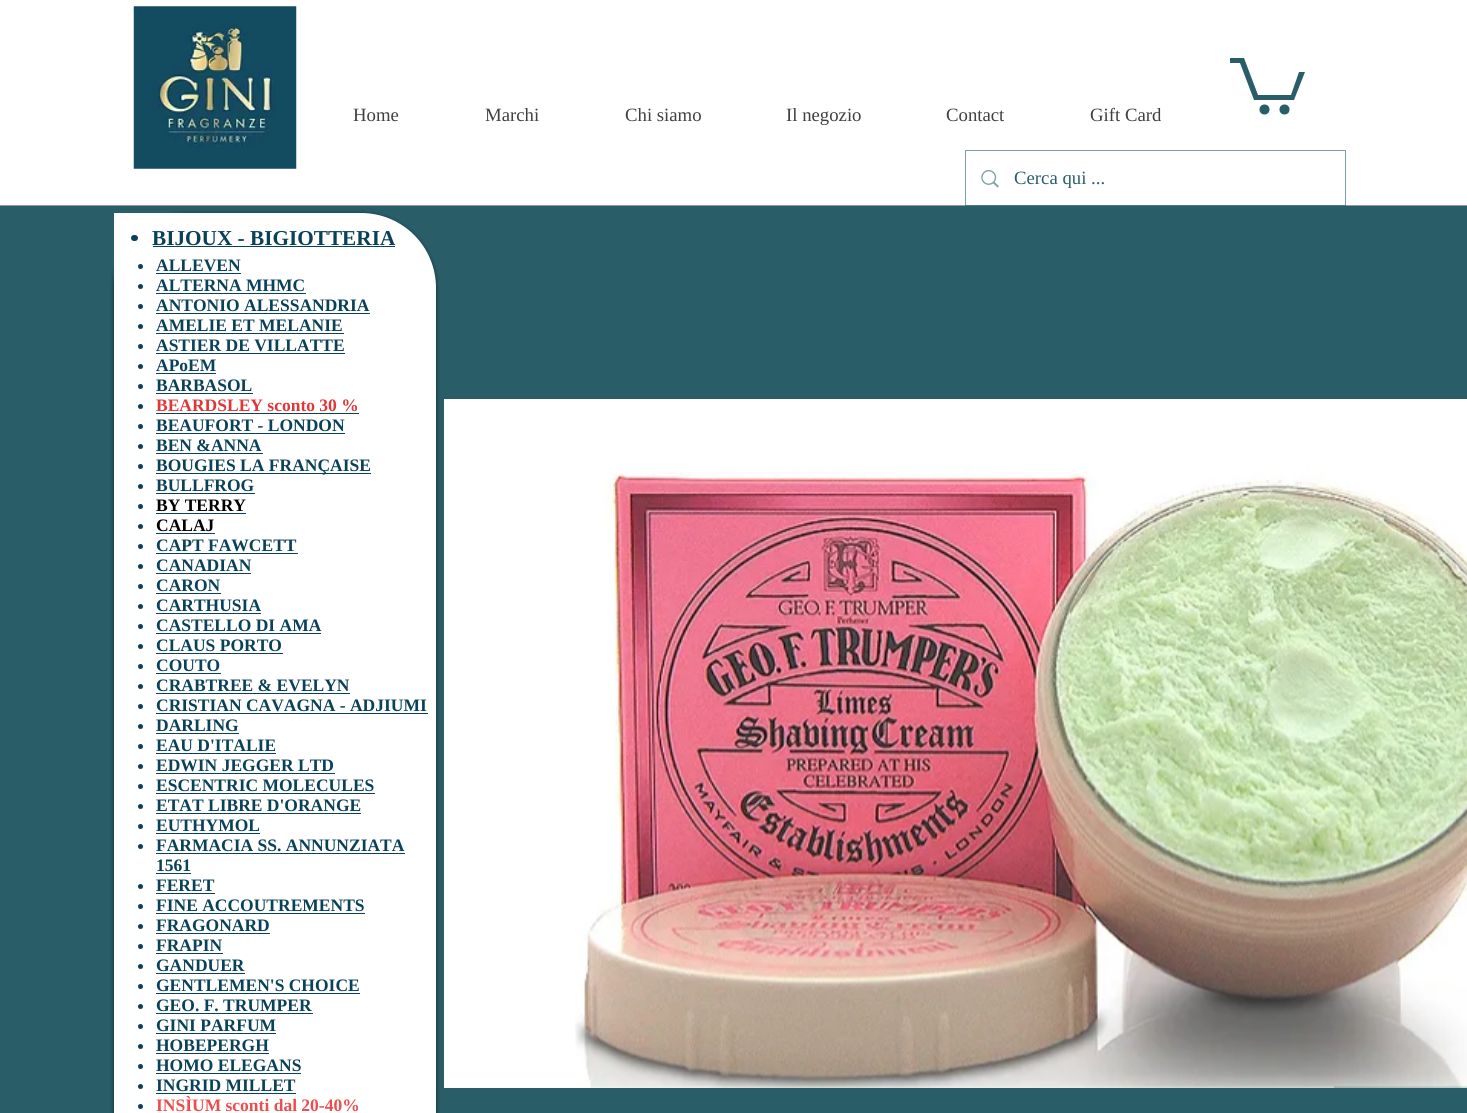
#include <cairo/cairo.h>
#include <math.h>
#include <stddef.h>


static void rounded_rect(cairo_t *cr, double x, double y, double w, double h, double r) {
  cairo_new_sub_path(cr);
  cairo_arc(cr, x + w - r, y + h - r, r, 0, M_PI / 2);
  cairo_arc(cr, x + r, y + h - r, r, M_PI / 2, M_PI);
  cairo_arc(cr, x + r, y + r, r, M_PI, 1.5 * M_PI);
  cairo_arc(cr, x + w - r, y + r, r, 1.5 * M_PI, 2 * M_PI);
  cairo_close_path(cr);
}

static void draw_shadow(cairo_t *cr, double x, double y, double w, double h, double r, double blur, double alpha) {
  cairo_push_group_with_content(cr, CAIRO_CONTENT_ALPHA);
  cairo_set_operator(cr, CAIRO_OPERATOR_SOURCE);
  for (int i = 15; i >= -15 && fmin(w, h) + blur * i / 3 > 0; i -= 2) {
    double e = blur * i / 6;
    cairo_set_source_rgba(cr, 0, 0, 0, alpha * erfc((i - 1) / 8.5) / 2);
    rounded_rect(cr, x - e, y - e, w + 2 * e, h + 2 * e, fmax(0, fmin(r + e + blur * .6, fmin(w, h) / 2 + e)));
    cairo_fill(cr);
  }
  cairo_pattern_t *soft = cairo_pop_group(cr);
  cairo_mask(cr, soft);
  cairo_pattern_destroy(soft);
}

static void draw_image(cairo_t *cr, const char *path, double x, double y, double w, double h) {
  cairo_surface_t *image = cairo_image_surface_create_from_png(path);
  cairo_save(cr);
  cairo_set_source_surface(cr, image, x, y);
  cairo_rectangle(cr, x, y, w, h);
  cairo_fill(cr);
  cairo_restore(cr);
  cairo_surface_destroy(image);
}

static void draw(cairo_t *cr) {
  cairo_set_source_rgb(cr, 41 / 255.0, 94 / 255.0, 105 / 255.0);
  cairo_paint(cr);
  cairo_set_source_rgb(cr, 1, 1, 1);
  cairo_rectangle(cr, 0, 0, 1467, 205);
  cairo_fill(cr);
  cairo_set_source_rgb(cr, 0, 0, 0);
  draw_shadow(cr, 114, 214, 322, 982, 75, 2.5, 0.6);
  cairo_set_source_rgb(cr, 151 / 255.0, 151 / 255.0, 151 / 255.0);
  cairo_rectangle(cr, 0, 205, 1467, 1);
  cairo_fill(cr);
  draw_image(cr, "images/1.png", 133, 6, 164, 163);
  cairo_set_source_rgb(cr, 41 / 255.0, 94 / 255.0, 105 / 255.0);
  cairo_new_path(cr);
  cairo_move_to(cr, 1305, 72);
  cairo_line_to(cr, 1294, 100);
  cairo_line_to(cr, 1254, 100);
  cairo_line_to(cr, 1240, 63);
  cairo_line_to(cr, 1230, 63);
  cairo_line_to(cr, 1230, 58);
  cairo_line_to(cr, 1244, 58);
  cairo_line_to(cr, 1258, 95);
  cairo_line_to(cr, 1291, 95);
  cairo_line_to(cr, 1299, 72);
  cairo_fill(cr);
  cairo_arc(cr, 1284.5, 109.5, 5, 0, 2 * M_PI);
  cairo_fill(cr);
  cairo_arc(cr, 1264.5, 109.5, 5, 0, 2 * M_PI);
  cairo_fill(cr);
  cairo_rectangle(cr, 965.5, 150.5, 380, 55);
  cairo_set_source_rgba(cr, 41 / 255.0, 94 / 255.0, 105 / 255.0, 0.6);
  cairo_set_line_width(cr, 1);
  cairo_stroke(cr);
  draw_image(cr, "images/2.png", 981, 170, 18, 18);
  cairo_set_source_rgb(cr, 1, 1, 1);
  cairo_new_path(cr);
  cairo_move_to(cr, 114, 213);
  cairo_line_to(cr, 361, 213);
  cairo_curve_to(cr, 402.5, 213, 436, 246.5, 436, 288);
  cairo_line_to(cr, 436, 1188);
  cairo_line_to(cr, 114, 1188);
  cairo_close_path(cr);
  cairo_fill(cr);
  cairo_set_source_rgb(cr, 9 / 255.0, 65 / 255.0, 89 / 255.0);
  rounded_rect(cr, 131, 235, 7, 6, 3);
  cairo_fill(cr);
  cairo_rectangle(cr, 153, 246, 242, 1);
  cairo_fill(cr);
  cairo_arc(cr, 140.5, 266.5, 2.5, 0, 2 * M_PI);
  cairo_fill(cr);
  cairo_rectangle(cr, 156, 273, 85, 1);
  cairo_fill(cr);
  cairo_arc(cr, 140.5, 286.5, 2.5, 0, 2 * M_PI);
  cairo_fill(cr);
  cairo_rectangle(cr, 156, 293, 150, 1);
  cairo_fill(cr);
  cairo_arc(cr, 140.5, 306.5, 2.5, 0, 2 * M_PI);
  cairo_fill(cr);
  cairo_rectangle(cr, 156, 313, 214, 1);
  cairo_fill(cr);
  cairo_arc(cr, 140.5, 326.5, 2.5, 0, 2 * M_PI);
  cairo_fill(cr);
  cairo_rectangle(cr, 156, 333, 188, 1);
  cairo_fill(cr);
  cairo_arc(cr, 140.5, 346.5, 2.5, 0, 2 * M_PI);
  cairo_fill(cr);
  cairo_rectangle(cr, 156, 353, 189, 1);
  cairo_fill(cr);
  cairo_arc(cr, 140.5, 366.5, 2.5, 0, 2 * M_PI);
  cairo_fill(cr);
  cairo_rectangle(cr, 156, 373, 60, 1);
  cairo_fill(cr);
  cairo_arc(cr, 140.5, 386.5, 2.5, 0, 2 * M_PI);
  cairo_fill(cr);
  cairo_rectangle(cr, 156, 393, 97, 1);
  cairo_fill(cr);
  cairo_arc(cr, 140.5, 406.5, 2.5, 0, 2 * M_PI);
  cairo_fill(cr);
  cairo_rectangle(cr, 156, 413, 203, 1);
  cairo_fill(cr);
  cairo_arc(cr, 140.5, 426.5, 2.5, 0, 2 * M_PI);
  cairo_fill(cr);
  cairo_rectangle(cr, 156, 433, 189, 1);
  cairo_fill(cr);
  cairo_arc(cr, 140.5, 446.5, 2.5, 0, 2 * M_PI);
  cairo_fill(cr);
  cairo_rectangle(cr, 156, 453, 107, 1);
  cairo_fill(cr);
  cairo_arc(cr, 140.5, 466.5, 2.5, 0, 2 * M_PI);
  cairo_fill(cr);
  cairo_rectangle(cr, 156, 473, 215, 1);
  cairo_fill(cr);
  cairo_arc(cr, 140.5, 486.5, 2.5, 0, 2 * M_PI);
  cairo_fill(cr);
  cairo_rectangle(cr, 156, 493, 99, 1);
  cairo_fill(cr);
  cairo_arc(cr, 140.5, 506.5, 2.5, 0, 2 * M_PI);
  cairo_fill(cr);
  cairo_rectangle(cr, 156, 513, 90, 1);
  cairo_fill(cr);
  cairo_arc(cr, 140.5, 526.5, 2.5, 0, 2 * M_PI);
  cairo_fill(cr);
  cairo_rectangle(cr, 156, 533, 59, 1);
  cairo_fill(cr);
  cairo_arc(cr, 140.5, 546.5, 2.5, 0, 2 * M_PI);
  cairo_fill(cr);
  cairo_rectangle(cr, 156, 553, 142, 1);
  cairo_fill(cr);
  cairo_arc(cr, 140.5, 566.5, 2.5, 0, 2 * M_PI);
  cairo_fill(cr);
  cairo_rectangle(cr, 156, 573, 95, 1);
  cairo_fill(cr);
  cairo_arc(cr, 140.5, 586.5, 2.5, 0, 2 * M_PI);
  cairo_fill(cr);
  cairo_rectangle(cr, 156, 593, 65, 1);
  cairo_fill(cr);
  cairo_arc(cr, 140.5, 606.5, 2.5, 0, 2 * M_PI);
  cairo_fill(cr);
  cairo_rectangle(cr, 156, 613, 105, 1);
  cairo_fill(cr);
  cairo_arc(cr, 140.5, 626.5, 2.5, 0, 2 * M_PI);
  cairo_fill(cr);
  cairo_rectangle(cr, 156, 633, 165, 1);
  cairo_fill(cr);
  cairo_arc(cr, 140.5, 646.5, 2.5, 0, 2 * M_PI);
  cairo_fill(cr);
  cairo_rectangle(cr, 156, 653, 127, 1);
  cairo_fill(cr);
  cairo_arc(cr, 140.5, 666.5, 2.5, 0, 2 * M_PI);
  cairo_fill(cr);
  cairo_rectangle(cr, 156, 673, 65, 1);
  cairo_fill(cr);
  cairo_arc(cr, 140.5, 686.5, 2.5, 0, 2 * M_PI);
  cairo_fill(cr);
  cairo_rectangle(cr, 156, 693, 194, 1);
  cairo_fill(cr);
  cairo_arc(cr, 140.5, 706.5, 2.5, 0, 2 * M_PI);
  cairo_fill(cr);
  cairo_rectangle(cr, 156, 713, 272, 1);
  cairo_fill(cr);
  cairo_arc(cr, 140.5, 726.5, 2.5, 0, 2 * M_PI);
  cairo_fill(cr);
  cairo_rectangle(cr, 156, 733, 83, 1);
  cairo_fill(cr);
  cairo_arc(cr, 140.5, 746.5, 2.5, 0, 2 * M_PI);
  cairo_fill(cr);
  cairo_rectangle(cr, 156, 753, 120, 1);
  cairo_fill(cr);
  cairo_arc(cr, 140.5, 766.5, 2.5, 0, 2 * M_PI);
  cairo_fill(cr);
  cairo_rectangle(cr, 156, 773, 179, 1);
  cairo_fill(cr);
  cairo_arc(cr, 140.5, 786.5, 2.5, 0, 2 * M_PI);
  cairo_fill(cr);
  cairo_rectangle(cr, 156, 793, 219, 1);
  cairo_fill(cr);
  cairo_arc(cr, 140.5, 806.5, 2.5, 0, 2 * M_PI);
  cairo_fill(cr);
  cairo_rectangle(cr, 156, 813, 205, 1);
  cairo_fill(cr);
  cairo_arc(cr, 140.5, 826.5, 2.5, 0, 2 * M_PI);
  cairo_fill(cr);
  cairo_rectangle(cr, 156, 833, 104, 1);
  cairo_fill(cr);
  cairo_arc(cr, 140.5, 846.5, 2.5, 0, 2 * M_PI);
  cairo_fill(cr);
  cairo_rectangle(cr, 156, 853, 249, 1);
  cairo_fill(cr);
  cairo_rectangle(cr, 156, 873, 35, 1);
  cairo_fill(cr);
  cairo_arc(cr, 140.5, 886.5, 2.5, 0, 2 * M_PI);
  cairo_fill(cr);
  cairo_rectangle(cr, 156, 893, 59, 1);
  cairo_fill(cr);
  cairo_arc(cr, 140.5, 906.5, 2.5, 0, 2 * M_PI);
  cairo_fill(cr);
  cairo_rectangle(cr, 156, 913, 209, 1);
  cairo_fill(cr);
  cairo_arc(cr, 140.5, 926.5, 2.5, 0, 2 * M_PI);
  cairo_fill(cr);
  cairo_rectangle(cr, 156, 933, 114, 1);
  cairo_fill(cr);
  cairo_arc(cr, 140.5, 946.5, 2.5, 0, 2 * M_PI);
  cairo_fill(cr);
  cairo_rectangle(cr, 156, 953, 67, 1);
  cairo_fill(cr);
  cairo_arc(cr, 140.5, 966.5, 2.5, 0, 2 * M_PI);
  cairo_fill(cr);
  cairo_rectangle(cr, 156, 973, 89, 1);
  cairo_fill(cr);
  cairo_arc(cr, 140.5, 986.5, 2.5, 0, 2 * M_PI);
  cairo_fill(cr);
  cairo_rectangle(cr, 156, 993, 204, 1);
  cairo_fill(cr);
  cairo_arc(cr, 140.5, 1006.5, 2.5, 0, 2 * M_PI);
  cairo_fill(cr);
  cairo_rectangle(cr, 156, 1013, 157, 1);
  cairo_fill(cr);
  cairo_arc(cr, 140.5, 1026.5, 2.5, 0, 2 * M_PI);
  cairo_fill(cr);
  cairo_rectangle(cr, 156, 1033, 120, 1);
  cairo_fill(cr);
  cairo_arc(cr, 140.5, 1046.5, 2.5, 0, 2 * M_PI);
  cairo_fill(cr);
  cairo_rectangle(cr, 156, 1053, 113, 1);
  cairo_fill(cr);
  cairo_arc(cr, 140.5, 1066.5, 2.5, 0, 2 * M_PI);
  cairo_fill(cr);
  cairo_rectangle(cr, 156, 1073, 145, 1);
  cairo_fill(cr);
  cairo_arc(cr, 140.5, 1086.5, 2.5, 0, 2 * M_PI);
  cairo_fill(cr);
  cairo_rectangle(cr, 156, 1093, 140, 1);
  cairo_fill(cr);
  cairo_arc(cr, 140.5, 1106.5, 2.5, 0, 2 * M_PI);
  cairo_fill(cr);
  cairo_set_source_rgb(cr, 1, 1, 1);
  cairo_rectangle(cr, 444, 399, 890, 689);
  cairo_fill(cr);
  draw_image(cr, "images/3.png", 575, 399, 892, 689);
  cairo_select_font_face(cr, "Liberation Serif", CAIRO_FONT_SLANT_NORMAL, CAIRO_FONT_WEIGHT_NORMAL);
  cairo_set_font_size(cr, 18.75);
  cairo_set_source_rgb(cr, 64 / 255.0, 64 / 255.0, 65 / 255.0);
  cairo_move_to(cr, 353, 121);
  cairo_show_text(cr, "Home");
  cairo_move_to(cr, 485, 121);
  cairo_show_text(cr, "Marchi");
  cairo_move_to(cr, 625, 121);
  cairo_show_text(cr, "Chi siamo");
  cairo_move_to(cr, 786, 121);
  cairo_show_text(cr, "Il negozio");
  cairo_move_to(cr, 946, 121);
  cairo_show_text(cr, "Contact");
  cairo_move_to(cr, 1090, 121);
  cairo_show_text(cr, "Gift Card");
  cairo_set_source_rgb(cr, 41 / 255.0, 94 / 255.0, 105 / 255.0);
  cairo_move_to(cr, 1014, 184);
  cairo_show_text(cr, "Cerca qui ...");
  cairo_select_font_face(cr, "Liberation Serif", CAIRO_FONT_SLANT_NORMAL, CAIRO_FONT_WEIGHT_BOLD);
  cairo_set_font_size(cr, 21.25);
  cairo_set_source_rgb(cr, 9 / 255.0, 65 / 255.0, 89 / 255.0);
  cairo_move_to(cr, 152, 245);
  cairo_show_text(cr, "BIJOUX - BIGIOTTERIA");
  cairo_set_font_size(cr, 17.5);
  cairo_move_to(cr, 156, 271);
  cairo_show_text(cr, "ALLEVEN");
  cairo_move_to(cr, 156, 291);
  cairo_show_text(cr, "ALTERNA MHMC");
  cairo_move_to(cr, 156, 311);
  cairo_show_text(cr, "ANTONIO ALESSANDRIA");
  cairo_move_to(cr, 156, 331);
  cairo_show_text(cr, "AMELIE ET MELANIE");
  cairo_move_to(cr, 156, 351);
  cairo_show_text(cr, "ASTIER DE VILLATTE");
  cairo_move_to(cr, 156, 371);
  cairo_show_text(cr, "APoEM");
  cairo_move_to(cr, 156, 391);
  cairo_show_text(cr, "BARBASOL");
  cairo_set_source_rgb(cr, 224 / 255.0, 54 / 255.0, 54 / 255.0);
  cairo_move_to(cr, 156, 411);
  cairo_show_text(cr, "BEARDSLEY sconto 30 %");
  cairo_set_source_rgb(cr, 9 / 255.0, 65 / 255.0, 89 / 255.0);
  cairo_move_to(cr, 156, 431);
  cairo_show_text(cr, "BEAUFORT - LONDON");
  cairo_move_to(cr, 156, 451);
  cairo_show_text(cr, "BEN &ANNA");
  cairo_move_to(cr, 156, 471);
  cairo_show_text(cr, "BOUGIES LA FRANÇAISE");
  cairo_move_to(cr, 156, 491);
  cairo_show_text(cr, "BULLFROG");
  cairo_set_source_rgb(cr, 0, 0, 0);
  cairo_move_to(cr, 156, 511);
  cairo_show_text(cr, "BY TERRY");
  cairo_move_to(cr, 156, 531);
  cairo_show_text(cr, "CALAJ");
  cairo_set_source_rgb(cr, 9 / 255.0, 65 / 255.0, 89 / 255.0);
  cairo_move_to(cr, 156, 551);
  cairo_show_text(cr, "CAPT FAWCETT");
  cairo_move_to(cr, 156, 571);
  cairo_show_text(cr, "CANADIAN");
  cairo_move_to(cr, 156, 591);
  cairo_show_text(cr, "CARON");
  cairo_move_to(cr, 156, 611);
  cairo_show_text(cr, "CARTHUSIA");
  cairo_move_to(cr, 156, 631);
  cairo_show_text(cr, "CASTELLO DI AMA");
  cairo_move_to(cr, 156, 651);
  cairo_show_text(cr, "CLAUS PORTO");
  cairo_move_to(cr, 156, 671);
  cairo_show_text(cr, "COUTO");
  cairo_move_to(cr, 156, 691);
  cairo_show_text(cr, "CRABTREE & EVELYN");
  cairo_move_to(cr, 156, 711);
  cairo_show_text(cr, "CRISTIAN CAVAGNA - ADJIUMI");
  cairo_move_to(cr, 156, 731);
  cairo_show_text(cr, "DARLING");
  cairo_move_to(cr, 156, 751);
  cairo_show_text(cr, "EAU D'ITALIE");
  cairo_move_to(cr, 156, 771);
  cairo_show_text(cr, "EDWIN JEGGER LTD");
  cairo_move_to(cr, 156, 791);
  cairo_show_text(cr, "ESCENTRIC MOLECULES");
  cairo_move_to(cr, 156, 811);
  cairo_show_text(cr, "ETAT LIBRE D'ORANGE");
  cairo_move_to(cr, 156, 831);
  cairo_show_text(cr, "EUTHYMOL");
  cairo_move_to(cr, 156, 851);
  cairo_show_text(cr, "FARMACIA SS. ANNUNZIATA");
  cairo_move_to(cr, 156, 871);
  cairo_show_text(cr, "1561");
  cairo_move_to(cr, 156, 891);
  cairo_show_text(cr, "FERET");
  cairo_move_to(cr, 156, 911);
  cairo_show_text(cr, "FINE ACCOUTREMENTS");
  cairo_move_to(cr, 156, 931);
  cairo_show_text(cr, "FRAGONARD");
  cairo_move_to(cr, 156, 951);
  cairo_show_text(cr, "FRAPIN");
  cairo_move_to(cr, 156, 971);
  cairo_show_text(cr, "GANDUER");
  cairo_move_to(cr, 156, 991);
  cairo_show_text(cr, "GENTLEMEN'S CHOICE");
  cairo_move_to(cr, 156, 1011);
  cairo_show_text(cr, "GEO. F. TRUMPER");
  cairo_move_to(cr, 156, 1031);
  cairo_show_text(cr, "GINI PARFUM");
  cairo_move_to(cr, 156, 1051);
  cairo_show_text(cr, "HOBEPERGH");
  cairo_move_to(cr, 156, 1071);
  cairo_show_text(cr, "HOMO ELEGANS");
  cairo_move_to(cr, 156, 1091);
  cairo_show_text(cr, "INGRID MILLET");
  cairo_set_source_rgb(cr, 236 / 255.0, 77 / 255.0, 77 / 255.0);
  cairo_move_to(cr, 156, 1111);
  cairo_show_text(cr, "INSÌUM sconti dal 20-40%");
}

int main(void) {
  cairo_surface_t *surface = cairo_image_surface_create(CAIRO_FORMAT_RGB24, 1467, 1113);
  cairo_t *cr = cairo_create(surface);
  cairo_font_options_t *options = cairo_font_options_create();
  cairo_font_options_set_hint_metrics(options, CAIRO_HINT_METRICS_OFF);
  cairo_font_options_set_hint_style(options, CAIRO_HINT_STYLE_NONE);
  cairo_set_font_options(cr, options);
  cairo_set_miter_limit(cr, 4);
  draw(cr);
  cairo_surface_write_to_png(surface, "out.png");
  cairo_font_options_destroy(options);
  cairo_destroy(cr);
  cairo_surface_destroy(surface);
  return 0;
}
